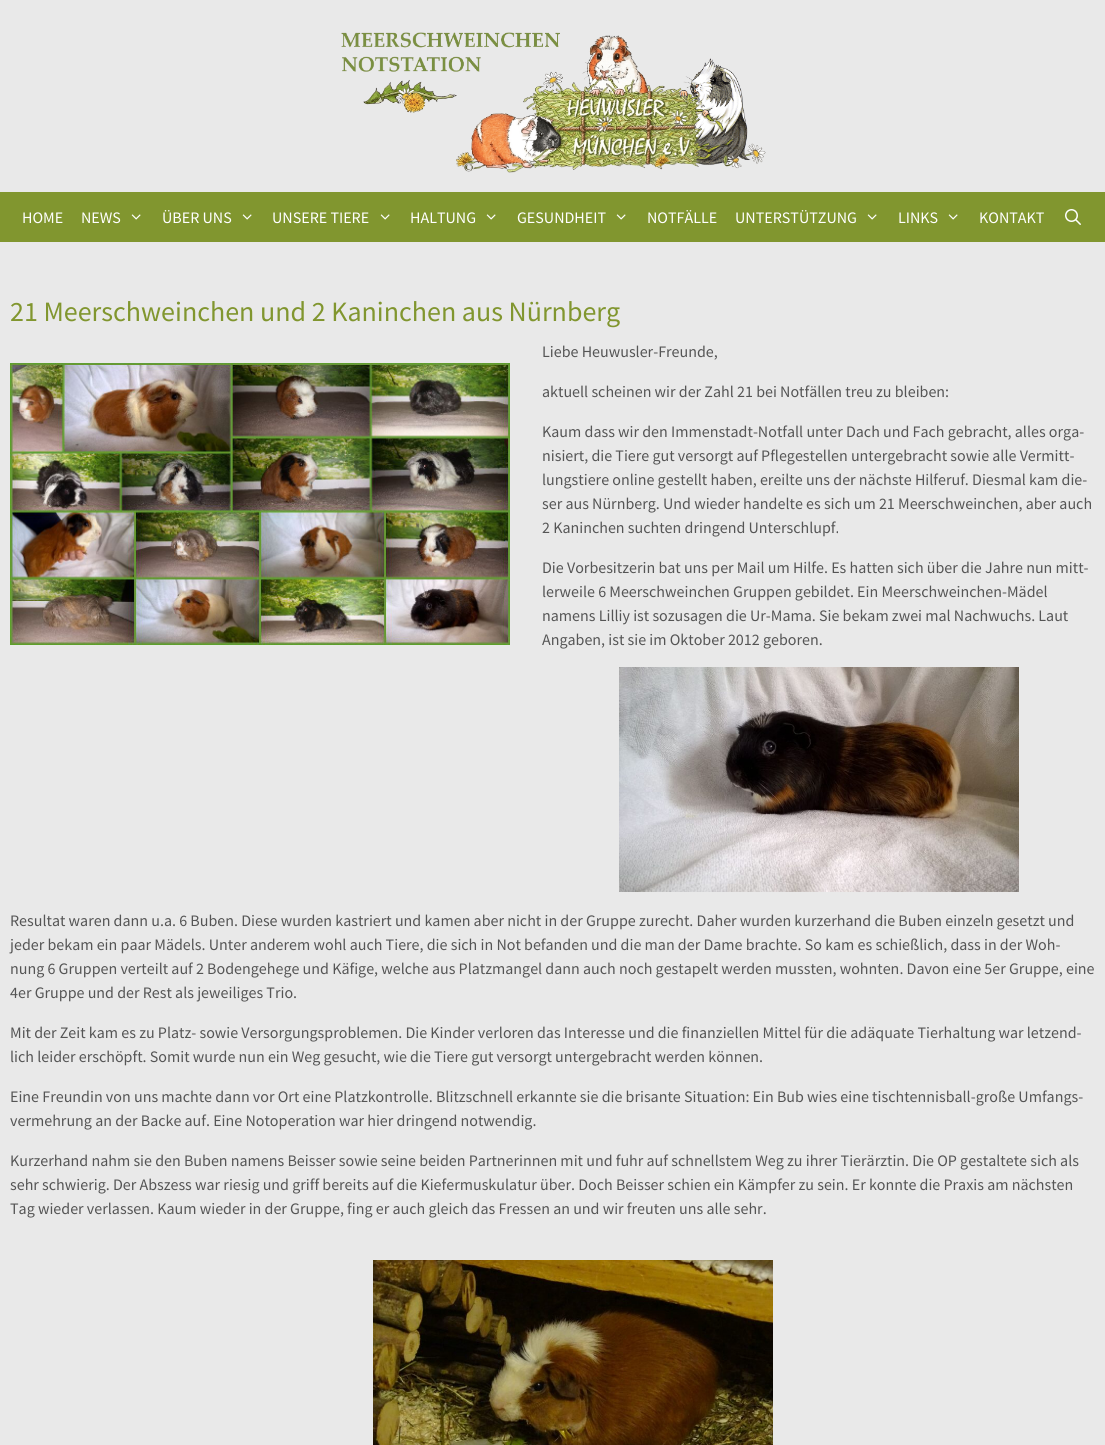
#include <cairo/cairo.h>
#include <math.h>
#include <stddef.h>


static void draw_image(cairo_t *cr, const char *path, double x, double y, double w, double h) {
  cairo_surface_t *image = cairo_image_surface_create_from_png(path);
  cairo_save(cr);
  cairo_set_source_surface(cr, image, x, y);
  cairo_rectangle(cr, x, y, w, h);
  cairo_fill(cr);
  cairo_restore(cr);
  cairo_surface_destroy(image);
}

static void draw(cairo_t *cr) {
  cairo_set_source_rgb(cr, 233 / 255.0, 233 / 255.0, 233 / 255.0);
  cairo_paint(cr);
  draw_image(cr, "images/1.png", 341, 32, 425, 141);
  cairo_set_source_rgb(cr, 129 / 255.0, 150 / 255.0, 47 / 255.0);
  cairo_rectangle(cr, 0, 192, 1105, 50);
  cairo_fill(cr);
  draw_image(cr, "images/2.png", 131, 214, 10, 6);
  draw_image(cr, "images/2.png", 242, 214, 10, 6);
  draw_image(cr, "images/2.png", 380, 214, 10, 6);
  draw_image(cr, "images/2.png", 486, 214, 10, 6);
  draw_image(cr, "images/2.png", 616, 214, 10, 6);
  draw_image(cr, "images/2.png", 867, 214, 10, 6);
  draw_image(cr, "images/2.png", 948, 214, 10, 6);
  draw_image(cr, "images/3.png", 1065, 209, 16, 16);
  draw_image(cr, "images/4.png", 619, 667, 400, 225);
  draw_image(cr, "images/5.png", 373, 1260, 400, 185);
  draw_image(cr, "images/6.png", 10, 363, 500, 282);
  cairo_select_font_face(cr, "Source Sans Pro", CAIRO_FONT_SLANT_NORMAL, CAIRO_FONT_WEIGHT_NORMAL);
  cairo_set_font_size(cr, 16);
  cairo_set_source_rgb(cr, 1, 1, 1);
  cairo_move_to(cr, 22, 223);
  cairo_show_text(cr, "HOME");
  cairo_move_to(cr, 81, 223);
  cairo_show_text(cr, "NEWS");
  cairo_move_to(cr, 162, 223);
  cairo_show_text(cr, "ÜBER UNS");
  cairo_move_to(cr, 272, 223);
  cairo_show_text(cr, "UNSERE TIERE");
  cairo_move_to(cr, 410, 223);
  cairo_show_text(cr, "HALTUNG");
  cairo_move_to(cr, 517, 223);
  cairo_show_text(cr, "GESUNDHEIT");
  cairo_move_to(cr, 647, 223);
  cairo_show_text(cr, "NOTFÄLLE");
  cairo_move_to(cr, 735, 223);
  cairo_show_text(cr, "UNTERSTÜTZUNG");
  cairo_move_to(cr, 898, 223);
  cairo_show_text(cr, "LINKS");
  cairo_move_to(cr, 979, 223);
  cairo_show_text(cr, "KONTAKT");
  cairo_set_font_size(cr, 28);
  cairo_set_source_rgb(cr, 129 / 255.0, 150 / 255.0, 47 / 255.0);
  cairo_move_to(cr, 10, 321);
  cairo_show_text(cr, "21 Meerschweinchen und 2 Kaninchen aus Nürnberg");
  cairo_set_font_size(cr, 16);
  cairo_set_source_rgb(cr, 85 / 255.0, 85 / 255.0, 85 / 255.0);
  cairo_move_to(cr, 542, 357);
  cairo_show_text(cr, "Liebe Heuwusler-Freunde,");
  cairo_move_to(cr, 542, 397);
  cairo_show_text(cr, "aktuell scheinen wir der Zahl 21 bei Notfällen treu zu bleiben:");
  cairo_move_to(cr, 542, 437);
  cairo_show_text(cr, "Kaum dass wir den Immenstadt-Notfall unter Dach und Fach gebracht, alles orga-");
  cairo_move_to(cr, 542, 461);
  cairo_show_text(cr, "nisiert, die Tiere gut versorgt auf Pflegestellen untergebracht sowie alle Vermitt-");
  cairo_move_to(cr, 542, 485);
  cairo_show_text(cr, "lungstiere online gestellt haben, ereilte uns der nächste Hilferuf. Diesmal kam die-");
  cairo_move_to(cr, 542, 509);
  cairo_show_text(cr, "ser aus Nürnberg. Und wieder handelte es sich um 21 Meerschweinchen, aber auch");
  cairo_move_to(cr, 542, 533);
  cairo_show_text(cr, "2 Kaninchen suchten dringend Unterschlupf.");
  cairo_move_to(cr, 542, 573);
  cairo_show_text(cr, "Die Vorbesitzerin bat uns per Mail um Hilfe. Es hatten sich über die Jahre nun mitt-");
  cairo_move_to(cr, 542, 597);
  cairo_show_text(cr, "lerweile 6 Meerschweinchen Gruppen gebildet. Ein Meerschweinchen-Mädel");
  cairo_move_to(cr, 542, 621);
  cairo_show_text(cr, "namens Lilliy ist sozusagen die Ur-Mama. Sie bekam zwei mal Nachwuchs. Laut");
  cairo_move_to(cr, 542, 645);
  cairo_show_text(cr, "Angaben, ist sie im Oktober 2012 geboren.");
  cairo_move_to(cr, 10, 926);
  cairo_show_text(cr, "Resultat waren dann u.a. 6 Buben. Diese wurden kastriert und kamen aber nicht in der Gruppe zurecht. Daher wurden kurzerhand die Buben einzeln gesetzt und");
  cairo_move_to(cr, 10, 950);
  cairo_show_text(cr, "jeder bekam ein paar Mädels. Unter anderem wohl auch Tiere, die sich in Not befanden und die man der Dame brachte. So kam es schießlich, dass in der Woh-");
  cairo_move_to(cr, 10, 974);
  cairo_show_text(cr, "nung 6 Gruppen verteilt auf 2 Bodengehege und Käfige, welche aus Platzmangel dann auch noch gestapelt werden mussten, wohnten. Davon eine 5er Gruppe, eine");
  cairo_move_to(cr, 10, 998);
  cairo_show_text(cr, "4er Gruppe und der Rest als jeweiliges Trio.");
  cairo_move_to(cr, 10, 1038);
  cairo_show_text(cr, "Mit der Zeit kam es zu Platz- sowie Versorgungsproblemen. Die Kinder verloren das Interesse und die finanziellen Mittel für die adäquate Tierhaltung war letzend-");
  cairo_move_to(cr, 10, 1062);
  cairo_show_text(cr, "lich leider erschöpft. Somit wurde nun ein Weg gesucht, wie die Tiere gut versorgt untergebracht werden können.");
  cairo_move_to(cr, 10, 1102);
  cairo_show_text(cr, "Eine Freundin von uns machte dann vor Ort eine Platzkontrolle. Blitzschnell erkannte sie die brisante Situation: Ein Bub wies eine tischtennisball-große Umfangs-");
  cairo_move_to(cr, 10, 1126);
  cairo_show_text(cr, "vermehrung an der Backe auf. Eine Notoperation war hier dringend notwendig.");
  cairo_move_to(cr, 10, 1166);
  cairo_show_text(cr, "Kurzerhand nahm sie den Buben namens Beisser sowie seine beiden Partnerinnen mit und fuhr auf schnellstem Weg zu ihrer Tierärztin. Die OP gestaltete sich als");
  cairo_move_to(cr, 10, 1190);
  cairo_show_text(cr, "sehr schwierig. Der Abszess war riesig und griff bereits auf die Kiefermuskulatur über. Doch Beisser schien ein Kämpfer zu sein. Er konnte die Praxis am nächsten");
  cairo_move_to(cr, 10, 1214);
  cairo_show_text(cr, "Tag wieder verlassen. Kaum wieder in der Gruppe, fing er auch gleich das Fressen an und wir freuten uns alle sehr.");
}

int main(void) {
  cairo_surface_t *surface = cairo_image_surface_create(CAIRO_FORMAT_RGB24, 1105, 1445);
  cairo_t *cr = cairo_create(surface);
  cairo_font_options_t *options = cairo_font_options_create();
  cairo_font_options_set_hint_metrics(options, CAIRO_HINT_METRICS_OFF);
  cairo_font_options_set_hint_style(options, CAIRO_HINT_STYLE_NONE);
  cairo_set_font_options(cr, options);
  cairo_set_miter_limit(cr, 4);
  draw(cr);
  cairo_surface_write_to_png(surface, "out.png");
  cairo_font_options_destroy(options);
  cairo_destroy(cr);
  cairo_surface_destroy(surface);
  return 0;
}
